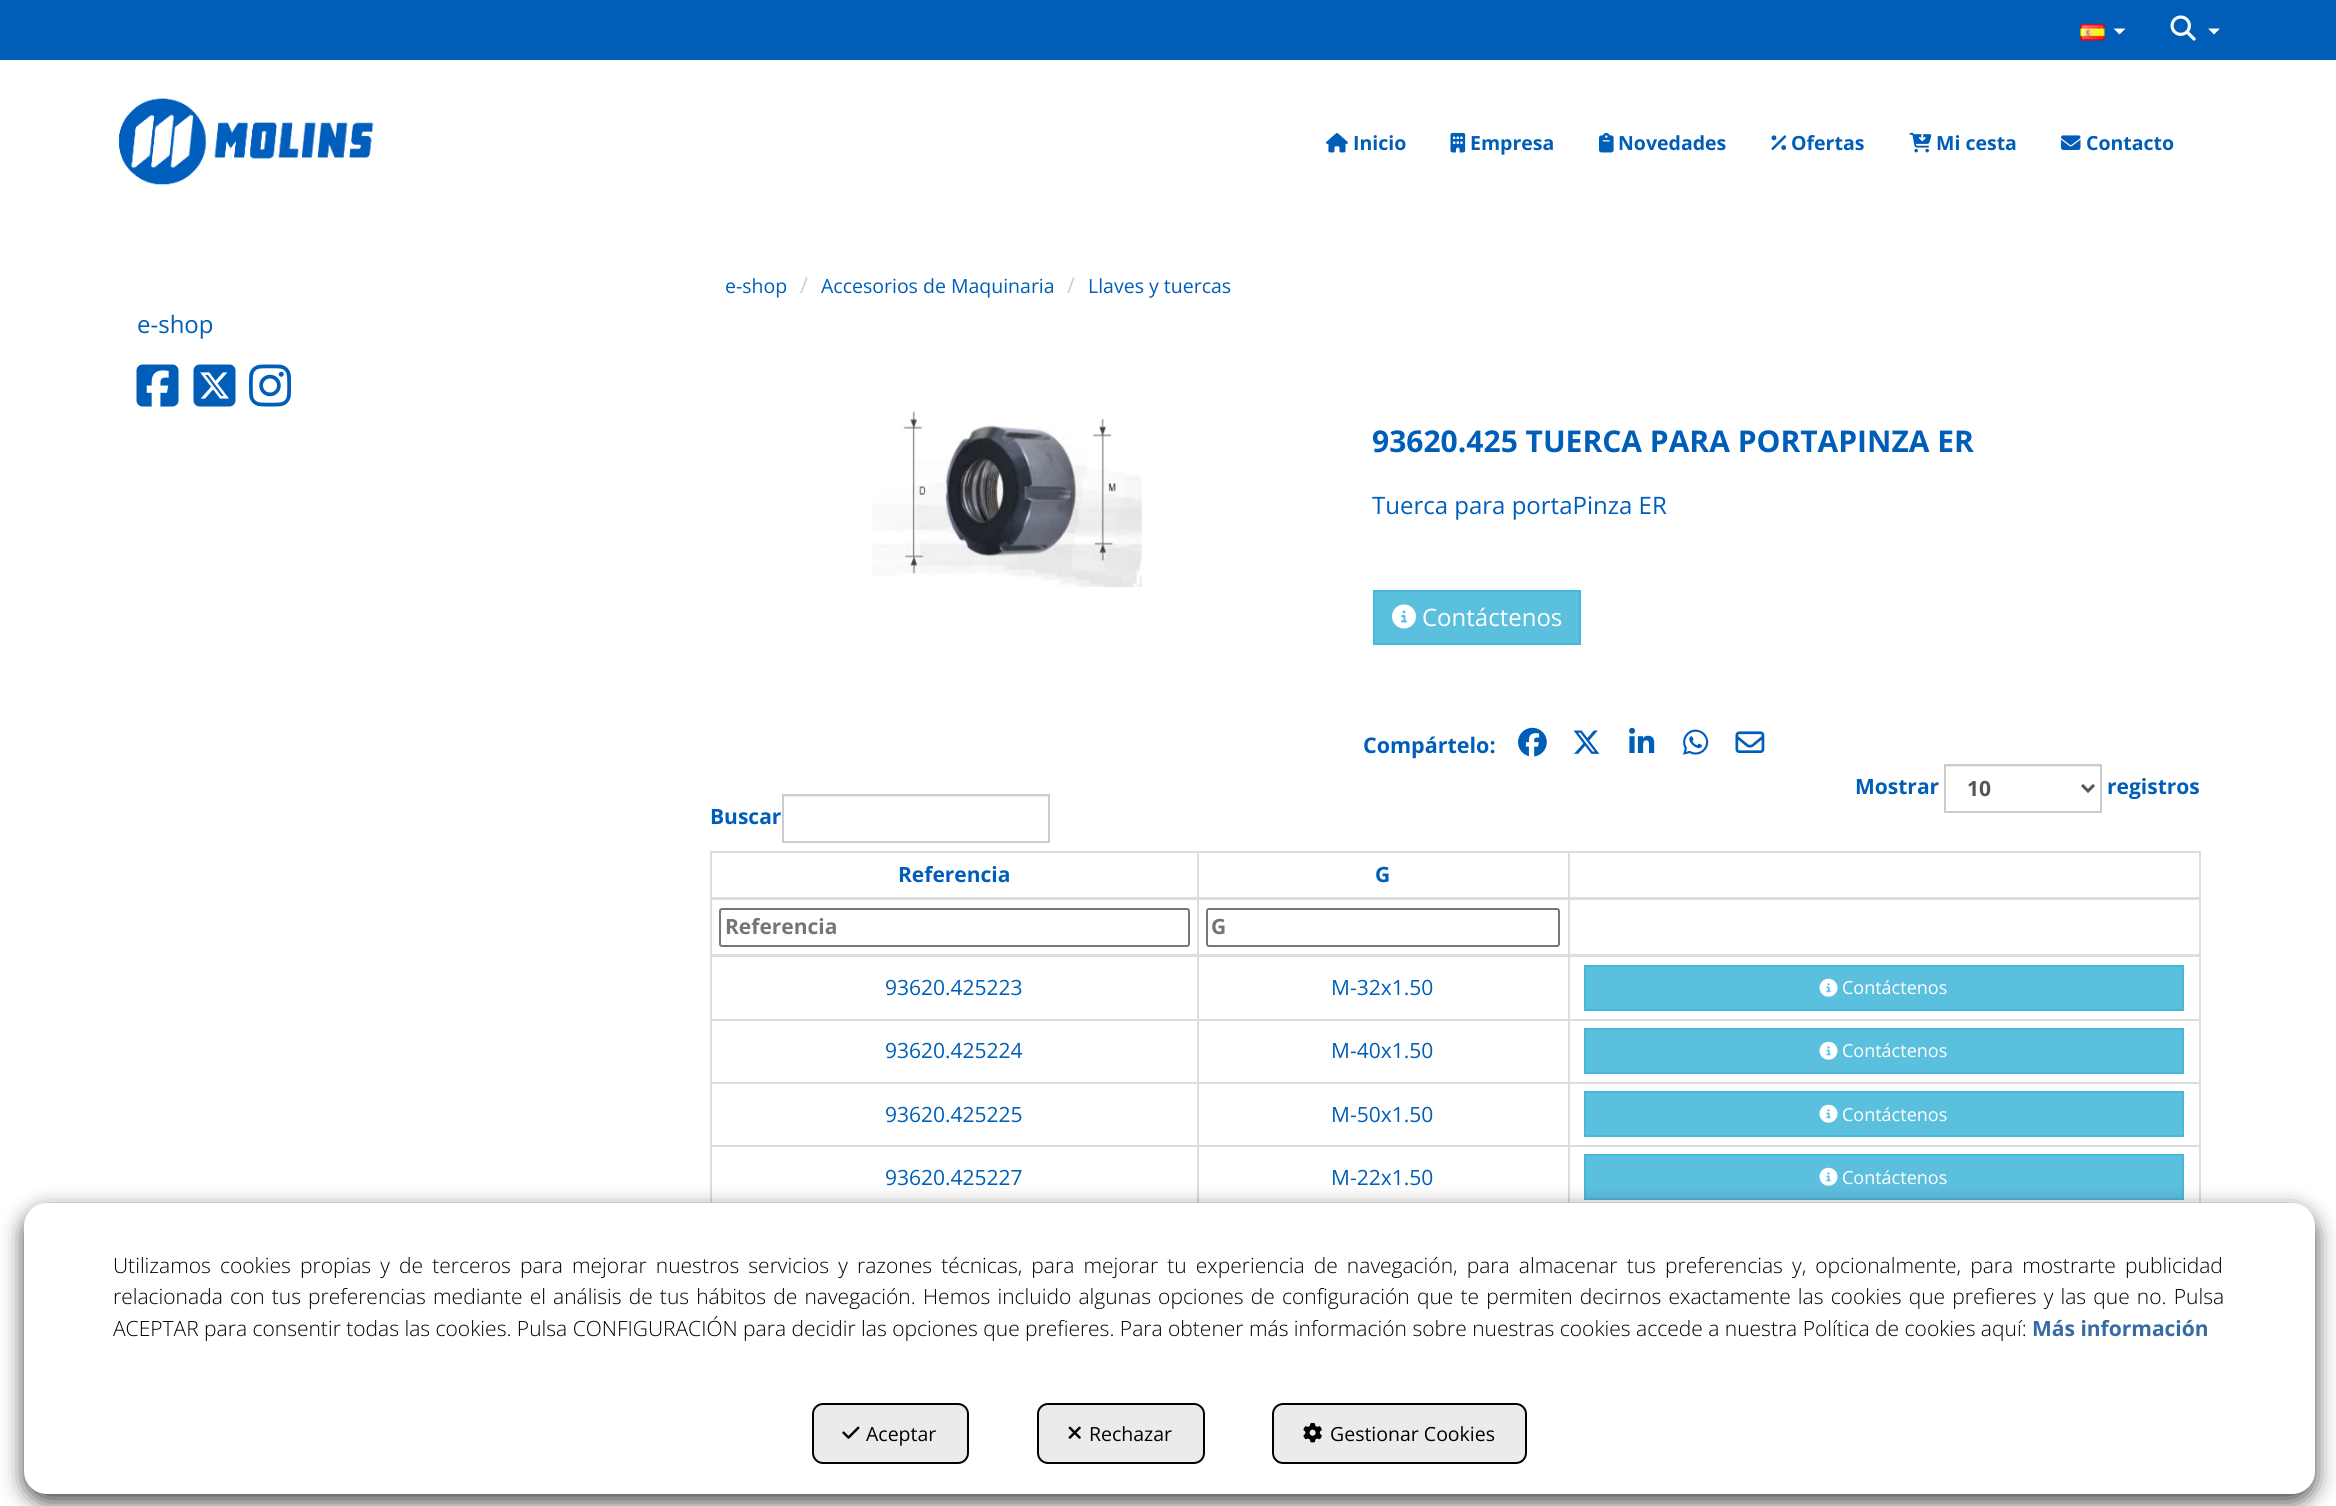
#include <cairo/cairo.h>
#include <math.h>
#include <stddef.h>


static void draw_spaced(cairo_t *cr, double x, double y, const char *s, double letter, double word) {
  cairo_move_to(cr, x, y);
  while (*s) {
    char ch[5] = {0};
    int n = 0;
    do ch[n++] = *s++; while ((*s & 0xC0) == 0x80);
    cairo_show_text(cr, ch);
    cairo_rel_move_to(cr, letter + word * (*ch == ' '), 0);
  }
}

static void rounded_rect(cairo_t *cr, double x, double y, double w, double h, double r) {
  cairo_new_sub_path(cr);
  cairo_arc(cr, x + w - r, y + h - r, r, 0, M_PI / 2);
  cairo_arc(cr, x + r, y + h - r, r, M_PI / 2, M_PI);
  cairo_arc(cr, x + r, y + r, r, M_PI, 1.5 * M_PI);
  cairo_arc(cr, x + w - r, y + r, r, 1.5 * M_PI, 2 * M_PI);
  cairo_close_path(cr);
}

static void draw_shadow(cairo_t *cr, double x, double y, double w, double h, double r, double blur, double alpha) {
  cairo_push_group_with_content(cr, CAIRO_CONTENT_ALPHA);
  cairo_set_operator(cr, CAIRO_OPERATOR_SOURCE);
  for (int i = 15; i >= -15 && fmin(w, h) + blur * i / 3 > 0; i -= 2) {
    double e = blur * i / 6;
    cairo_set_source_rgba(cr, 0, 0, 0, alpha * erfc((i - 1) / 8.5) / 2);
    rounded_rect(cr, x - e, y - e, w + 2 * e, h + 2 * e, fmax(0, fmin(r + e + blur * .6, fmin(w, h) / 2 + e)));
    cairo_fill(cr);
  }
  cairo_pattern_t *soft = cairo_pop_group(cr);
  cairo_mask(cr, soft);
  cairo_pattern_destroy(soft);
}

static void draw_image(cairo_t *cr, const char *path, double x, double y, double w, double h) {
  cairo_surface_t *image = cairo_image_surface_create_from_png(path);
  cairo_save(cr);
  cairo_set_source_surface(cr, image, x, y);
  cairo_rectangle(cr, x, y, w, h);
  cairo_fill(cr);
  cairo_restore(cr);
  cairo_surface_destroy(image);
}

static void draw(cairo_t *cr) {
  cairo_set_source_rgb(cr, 1, 1, 1);
  cairo_paint(cr);
  cairo_set_source_rgb(cr, 0, 94 / 255.0, 184 / 255.0);
  cairo_rectangle(cr, 0, 0, 2336, 60);
  cairo_fill(cr);
  draw_image(cr, "images/1.png", 2080, 23, 25, 18);
  cairo_set_source_rgb(cr, 1, 1, 1);
  cairo_new_path(cr);
  cairo_move_to(cr, 2113.5, 28.5);
  cairo_line_to(cr, 2125.5, 28.5);
  cairo_line_to(cr, 2119.5, 34.5);
  cairo_close_path(cr);
  cairo_fill(cr);
  draw_image(cr, "images/2.png", 2170, 15, 26, 26);
  cairo_new_path(cr);
  cairo_move_to(cr, 2208, 28.5);
  cairo_line_to(cr, 2220, 28.5);
  cairo_line_to(cr, 2214, 34.5);
  cairo_close_path(cr);
  cairo_fill(cr);
  draw_image(cr, "images/3.png", 118, 98, 256, 87);
  draw_image(cr, "images/4.png", 1326, 133, 22, 20);
  draw_image(cr, "images/5.png", 1450, 132, 16, 21);
  draw_image(cr, "images/6.png", 1599, 132, 15, 21);
  draw_image(cr, "images/7.png", 1771, 135, 16, 15);
  draw_image(cr, "images/8.png", 1909, 132, 23, 21);
  draw_image(cr, "images/9.png", 2061, 135, 20, 15);
  draw_image(cr, "images/10.png", 136, 364, 43, 43);
  draw_image(cr, "images/11.png", 193, 364, 43, 43);
  draw_image(cr, "images/12.png", 249, 364, 42, 43);
  draw_image(cr, "images/13.png", 872, 411, 271, 182);
  cairo_set_source_rgb(cr, 91 / 255.0, 192 / 255.0, 222 / 255.0);
  cairo_rectangle(cr, 1374, 591, 206, 53);
  cairo_fill_preserve(cr);
  cairo_set_source_rgb(cr, 70 / 255.0, 184 / 255.0, 218 / 255.0);
  cairo_stroke(cr);
  draw_image(cr, "images/14.png", 1392, 604, 24, 25);
  draw_image(cr, "images/15.png", 1518, 727, 29, 30);
  draw_image(cr, "images/16.png", 1573, 730, 27, 24);
  draw_image(cr, "images/17.png", 1629, 727, 26, 26);
  draw_image(cr, "images/18.png", 1683, 729, 26, 26);
  draw_image(cr, "images/19.png", 1735, 731, 30, 22);
  cairo_set_source_rgb(cr, 236 / 255.0, 236 / 255.0, 236 / 255.0);
  cairo_rectangle(cr, 1946, 766, 154, 1);
  cairo_fill(cr);
  cairo_rectangle(cr, 1945, 765, 156, 47);
  cairo_set_source_rgb(cr, 204 / 255.0, 204 / 255.0, 204 / 255.0);
  cairo_stroke(cr);
  cairo_new_path(cr);
  cairo_move_to(cr, 2082, 785);
  cairo_line_to(cr, 2088, 791);
  cairo_line_to(cr, 2094, 785);
  cairo_set_source_rgb(cr, 85 / 255.0, 85 / 255.0, 85 / 255.0);
  cairo_set_line_width(cr, 3);
  cairo_stroke(cr);
  cairo_set_source_rgb(cr, 236 / 255.0, 236 / 255.0, 236 / 255.0);
  cairo_rectangle(cr, 783, 796, 266, 1);
  cairo_fill(cr);
  cairo_rectangle(cr, 783, 795, 266, 47);
  cairo_set_source_rgb(cr, 204 / 255.0, 204 / 255.0, 204 / 255.0);
  cairo_set_line_width(cr, 2);
  cairo_stroke(cr);
  cairo_set_source_rgb(cr, 221 / 255.0, 221 / 255.0, 221 / 255.0);
  cairo_rectangle(cr, 1568, 851, 633, 2);
  cairo_fill(cr);
  cairo_rectangle(cr, 1568, 1019, 633, 2);
  cairo_fill(cr);
  cairo_rectangle(cr, 1568, 1082, 633, 2);
  cairo_fill(cr);
  cairo_rectangle(cr, 1568, 1145, 633, 2);
  cairo_fill(cr);
  cairo_rectangle(cr, 2199, 1145, 2, 64);
  cairo_fill(cr);
  cairo_rectangle(cr, 2199, 1082, 2, 64);
  cairo_fill(cr);
  cairo_rectangle(cr, 2199, 897, 2, 186);
  cairo_fill(cr);
  cairo_rectangle(cr, 2199, 851, 2, 48);
  cairo_fill(cr);
  cairo_rectangle(cr, 1568, 1145, 2, 64);
  cairo_fill(cr);
  cairo_rectangle(cr, 1197, 1145, 372, 2);
  cairo_fill(cr);
  cairo_rectangle(cr, 1568, 1082, 2, 64);
  cairo_fill(cr);
  cairo_rectangle(cr, 1197, 1082, 372, 2);
  cairo_fill(cr);
  cairo_rectangle(cr, 1568, 1019, 2, 64);
  cairo_fill(cr);
  cairo_rectangle(cr, 1197, 1019, 372, 2);
  cairo_fill(cr);
  cairo_rectangle(cr, 1568, 897, 2, 123);
  cairo_fill(cr);
  cairo_rectangle(cr, 1568, 851, 2, 48);
  cairo_fill(cr);
  cairo_rectangle(cr, 1197, 851, 372, 2);
  cairo_fill(cr);
  cairo_rectangle(cr, 1197, 1145, 2, 64);
  cairo_fill(cr);
  cairo_rectangle(cr, 710, 1145, 489, 2);
  cairo_fill(cr);
  cairo_rectangle(cr, 1197, 1082, 2, 64);
  cairo_fill(cr);
  cairo_rectangle(cr, 710, 1082, 489, 2);
  cairo_fill(cr);
  cairo_rectangle(cr, 1197, 1019, 2, 64);
  cairo_fill(cr);
  cairo_rectangle(cr, 710, 1019, 489, 2);
  cairo_fill(cr);
  cairo_rectangle(cr, 1197, 897, 2, 123);
  cairo_fill(cr);
  cairo_rectangle(cr, 1197, 851, 2, 48);
  cairo_fill(cr);
  cairo_rectangle(cr, 710, 851, 489, 2);
  cairo_fill(cr);
  cairo_rectangle(cr, 710, 1145, 2, 64);
  cairo_fill(cr);
  cairo_rectangle(cr, 710, 1082, 2, 64);
  cairo_fill(cr);
  cairo_rectangle(cr, 710, 897, 2, 186);
  cairo_fill(cr);
  cairo_rectangle(cr, 710, 851, 2, 48);
  cairo_fill(cr);
  cairo_rectangle(cr, 710, 897, 1491, 3);
  cairo_fill(cr);
  rounded_rect(cr, 720, 909, 469, 37, 2);
  cairo_set_source_rgb(cr, 118 / 255.0, 118 / 255.0, 118 / 255.0);
  cairo_stroke(cr);
  rounded_rect(cr, 1207, 909, 352, 37, 2);
  cairo_stroke(cr);
  cairo_set_source_rgb(cr, 221 / 255.0, 221 / 255.0, 221 / 255.0);
  cairo_rectangle(cr, 710, 954, 1491, 3);
  cairo_fill(cr);
  cairo_set_source_rgb(cr, 91 / 255.0, 192 / 255.0, 222 / 255.0);
  cairo_rectangle(cr, 1585, 966, 598, 44);
  cairo_fill_preserve(cr);
  cairo_set_source_rgb(cr, 70 / 255.0, 184 / 255.0, 218 / 255.0);
  cairo_stroke(cr);
  draw_image(cr, "images/20.png", 1819, 978, 19, 19);
  cairo_set_source_rgb(cr, 91 / 255.0, 192 / 255.0, 222 / 255.0);
  cairo_rectangle(cr, 1585, 1029, 598, 44);
  cairo_fill_preserve(cr);
  cairo_set_source_rgb(cr, 70 / 255.0, 184 / 255.0, 218 / 255.0);
  cairo_stroke(cr);
  draw_image(cr, "images/20.png", 1819, 1041, 19, 19);
  cairo_set_source_rgb(cr, 91 / 255.0, 192 / 255.0, 222 / 255.0);
  cairo_rectangle(cr, 1585, 1092, 598, 44);
  cairo_fill_preserve(cr);
  cairo_set_source_rgb(cr, 70 / 255.0, 184 / 255.0, 218 / 255.0);
  cairo_stroke(cr);
  draw_image(cr, "images/20.png", 1819, 1104, 19, 19);
  cairo_set_source_rgb(cr, 91 / 255.0, 192 / 255.0, 222 / 255.0);
  cairo_rectangle(cr, 1585, 1155, 598, 44);
  cairo_fill_preserve(cr);
  cairo_set_source_rgb(cr, 70 / 255.0, 184 / 255.0, 218 / 255.0);
  cairo_stroke(cr);
  draw_image(cr, "images/20.png", 1819, 1167, 19, 19);
  cairo_set_source_rgb(cr, 69 / 255.0, 69 / 255.0, 69 / 255.0);
  draw_shadow(cr, 24, 1211, 2291, 291, 23, 11, 1);
  cairo_set_source_rgb(cr, 1, 1, 1);
  rounded_rect(cr, 24, 1203, 2291, 291, 23);
  cairo_fill(cr);
  cairo_set_source_rgb(cr, 235 / 255.0, 235 / 255.0, 235 / 255.0);
  rounded_rect(cr, 813, 1404, 155, 59, 10);
  cairo_fill_preserve(cr);
  cairo_set_source_rgb(cr, 0, 0, 0);
  cairo_stroke(cr);
  draw_image(cr, "images/21.png", 842, 1426, 18, 13);
  cairo_set_source_rgb(cr, 235 / 255.0, 235 / 255.0, 235 / 255.0);
  rounded_rect(cr, 1038, 1404, 166, 59, 10);
  cairo_fill_preserve(cr);
  cairo_set_source_rgb(cr, 0, 0, 0);
  cairo_stroke(cr);
  draw_image(cr, "images/22.png", 1068, 1426, 13, 13);
  cairo_set_source_rgb(cr, 235 / 255.0, 235 / 255.0, 235 / 255.0);
  rounded_rect(cr, 1273, 1404, 253, 59, 10);
  cairo_fill_preserve(cr);
  cairo_set_source_rgb(cr, 0, 0, 0);
  cairo_stroke(cr);
  draw_image(cr, "images/23.png", 1303, 1422, 19, 21);
  cairo_select_font_face(cr, "Open Sans", CAIRO_FONT_SLANT_NORMAL, CAIRO_FONT_WEIGHT_BOLD);
  cairo_set_font_size(cr, 19.5);
  cairo_set_source_rgb(cr, 0, 94 / 255.0, 184 / 255.0);
  cairo_move_to(cr, 1353, 150);
  cairo_show_text(cr, "Inicio");
  cairo_move_to(cr, 1470, 150);
  cairo_show_text(cr, "Empresa");
  cairo_move_to(cr, 1618, 150);
  cairo_show_text(cr, "Novedades");
  cairo_move_to(cr, 1791, 150);
  cairo_show_text(cr, "Ofertas");
  cairo_move_to(cr, 1936, 150);
  cairo_show_text(cr, "Mi cesta");
  cairo_move_to(cr, 2086, 150);
  cairo_show_text(cr, "Contacto");
  cairo_select_font_face(cr, "Open Sans", CAIRO_FONT_SLANT_NORMAL, CAIRO_FONT_WEIGHT_NORMAL);
  cairo_set_font_size(cr, 24);
  cairo_move_to(cr, 137, 333);
  cairo_show_text(cr, "e-shop");
  cairo_set_font_size(cr, 19.5);
  cairo_move_to(cr, 725, 293);
  cairo_show_text(cr, "e-shop");
  cairo_set_font_size(cr, 21.5);
  cairo_set_source_rgb(cr, 204 / 255.0, 204 / 255.0, 204 / 255.0);
  cairo_move_to(cr, 800, 293);
  cairo_show_text(cr, "/");
  cairo_set_font_size(cr, 19.5);
  cairo_set_source_rgb(cr, 0, 94 / 255.0, 184 / 255.0);
  cairo_move_to(cr, 821, 293);
  cairo_show_text(cr, "Accesorios de Maquinaria");
  cairo_set_font_size(cr, 21.5);
  cairo_set_source_rgb(cr, 204 / 255.0, 204 / 255.0, 204 / 255.0);
  cairo_move_to(cr, 1067, 293);
  cairo_show_text(cr, "/");
  cairo_set_font_size(cr, 19.5);
  cairo_set_source_rgb(cr, 0, 94 / 255.0, 184 / 255.0);
  cairo_move_to(cr, 1088, 293);
  cairo_show_text(cr, "Llaves y tuercas");
  cairo_select_font_face(cr, "Open Sans", CAIRO_FONT_SLANT_NORMAL, CAIRO_FONT_WEIGHT_BOLD);
  cairo_set_font_size(cr, 30);
  cairo_move_to(cr, 1372, 452);
  cairo_show_text(cr, "93620.425 TUERCA PARA PORTAPINZA ER");
  cairo_select_font_face(cr, "Open Sans", CAIRO_FONT_SLANT_NORMAL, CAIRO_FONT_WEIGHT_NORMAL);
  cairo_set_font_size(cr, 24);
  cairo_move_to(cr, 1372, 514);
  cairo_show_text(cr, "Tuerca para portaPinza ER");
  cairo_set_source_rgb(cr, 1, 1, 1);
  cairo_move_to(cr, 1422, 626);
  cairo_show_text(cr, "Contáctenos");
  cairo_select_font_face(cr, "Open Sans", CAIRO_FONT_SLANT_NORMAL, CAIRO_FONT_WEIGHT_BOLD);
  cairo_set_font_size(cr, 21.5);
  cairo_set_source_rgb(cr, 0, 94 / 255.0, 184 / 255.0);
  cairo_move_to(cr, 1363, 753);
  cairo_show_text(cr, "Compártelo:");
  cairo_set_font_size(cr, 21);
  cairo_move_to(cr, 1855, 794);
  cairo_show_text(cr, "Mostrar");
  cairo_set_source_rgb(cr, 85 / 255.0, 85 / 255.0, 85 / 255.0);
  cairo_move_to(cr, 1967, 796);
  cairo_show_text(cr, "10");
  cairo_set_source_rgb(cr, 0, 94 / 255.0, 184 / 255.0);
  cairo_move_to(cr, 2107, 794);
  cairo_show_text(cr, "registros");
  cairo_move_to(cr, 710, 824);
  cairo_show_text(cr, "Buscar");
  cairo_move_to(cr, 898, 882);
  cairo_show_text(cr, "Referencia");
  cairo_move_to(cr, 1375, 882);
  cairo_show_text(cr, "G");
  cairo_set_source_rgb(cr, 117 / 255.0, 117 / 255.0, 117 / 255.0);
  cairo_move_to(cr, 725, 934);
  cairo_show_text(cr, "Referencia");
  cairo_move_to(cr, 1211, 934);
  cairo_show_text(cr, "G");
  cairo_select_font_face(cr, "Open Sans", CAIRO_FONT_SLANT_NORMAL, CAIRO_FONT_WEIGHT_NORMAL);
  cairo_set_source_rgb(cr, 0, 94 / 255.0, 184 / 255.0);
  cairo_move_to(cr, 885, 995);
  cairo_show_text(cr, "93620.425223");
  cairo_move_to(cr, 1331, 995);
  cairo_show_text(cr, "M-32x1.50");
  cairo_set_font_size(cr, 18);
  cairo_set_source_rgb(cr, 1, 1, 1);
  cairo_move_to(cr, 1842, 994);
  cairo_show_text(cr, "Contáctenos");
  cairo_set_font_size(cr, 21);
  cairo_set_source_rgb(cr, 0, 94 / 255.0, 184 / 255.0);
  cairo_move_to(cr, 885, 1058);
  cairo_show_text(cr, "93620.425224");
  cairo_move_to(cr, 1331, 1058);
  cairo_show_text(cr, "M-40x1.50");
  cairo_set_font_size(cr, 18);
  cairo_set_source_rgb(cr, 1, 1, 1);
  cairo_move_to(cr, 1842, 1057);
  cairo_show_text(cr, "Contáctenos");
  cairo_set_font_size(cr, 21);
  cairo_set_source_rgb(cr, 0, 94 / 255.0, 184 / 255.0);
  cairo_move_to(cr, 885, 1122);
  cairo_show_text(cr, "93620.425225");
  cairo_move_to(cr, 1331, 1122);
  cairo_show_text(cr, "M-50x1.50");
  cairo_set_font_size(cr, 18);
  cairo_set_source_rgb(cr, 1, 1, 1);
  cairo_move_to(cr, 1842, 1121);
  cairo_show_text(cr, "Contáctenos");
  cairo_set_font_size(cr, 21);
  cairo_set_source_rgb(cr, 0, 94 / 255.0, 184 / 255.0);
  cairo_move_to(cr, 885, 1185);
  cairo_show_text(cr, "93620.425227");
  cairo_move_to(cr, 1331, 1185);
  cairo_show_text(cr, "M-22x1.50");
  cairo_set_font_size(cr, 18);
  cairo_set_source_rgb(cr, 1, 1, 1);
  cairo_move_to(cr, 1842, 1184);
  cairo_show_text(cr, "Contáctenos");
  cairo_select_font_face(cr, "Open Sans Light", CAIRO_FONT_SLANT_NORMAL, CAIRO_FONT_WEIGHT_NORMAL);
  cairo_set_font_size(cr, 21);
  cairo_set_source_rgb(cr, 0, 0, 0);
  draw_spaced(cr, 113, 1273, "Utilizamos cookies propias y de terceros para mejorar nuestros servicios y razones técnicas, para mejorar tu experiencia de navegación, para almacenar tus preferencias y, opcionalmente, para mostrarte publicidad", 0, 3.7);
  draw_spaced(cr, 113, 1304, "relacionada con tus preferencias mediante el análisis de tus hábitos de navegación.", 0, 1.7);
  draw_spaced(cr, 923, 1304, "Hemos incluido algunas opciones de configuración que te permiten decirnos exactamente las cookies que prefieres y las que no. Pulsa", 0, 1.7);
  cairo_move_to(cr, 113, 1336);
  cairo_show_text(cr, "ACEPTAR para consentir todas las cookies. Pulsa CONFIGURACIÓN para decidir las opciones que prefieres. Para obtener más información sobre nuestras cookies accede a nuestra Política de cookies aquí:");
  cairo_select_font_face(cr, "Open Sans", CAIRO_FONT_SLANT_NORMAL, CAIRO_FONT_WEIGHT_BOLD);
  cairo_set_source_rgb(cr, 55 / 255.0, 107 / 255.0, 163 / 255.0);
  cairo_move_to(cr, 2032, 1336);
  cairo_show_text(cr, "Más información");
  cairo_select_font_face(cr, "Open Sans", CAIRO_FONT_SLANT_NORMAL, CAIRO_FONT_WEIGHT_NORMAL);
  cairo_set_font_size(cr, 19.5);
  cairo_set_source_rgb(cr, 0, 0, 0);
  cairo_move_to(cr, 866, 1441);
  cairo_show_text(cr, "Aceptar");
  cairo_move_to(cr, 1089, 1441);
  cairo_show_text(cr, "Rechazar");
  cairo_move_to(cr, 1330, 1441);
  cairo_show_text(cr, "Gestionar Cookies");
}

int main(void) {
  cairo_surface_t *surface = cairo_image_surface_create(CAIRO_FORMAT_RGB24, 2336, 1506);
  cairo_t *cr = cairo_create(surface);
  cairo_font_options_t *options = cairo_font_options_create();
  cairo_font_options_set_hint_metrics(options, CAIRO_HINT_METRICS_OFF);
  cairo_font_options_set_hint_style(options, CAIRO_HINT_STYLE_NONE);
  cairo_set_font_options(cr, options);
  cairo_set_miter_limit(cr, 4);
  draw(cr);
  cairo_surface_write_to_png(surface, "out.png");
  cairo_font_options_destroy(options);
  cairo_destroy(cr);
  cairo_surface_destroy(surface);
  return 0;
}
